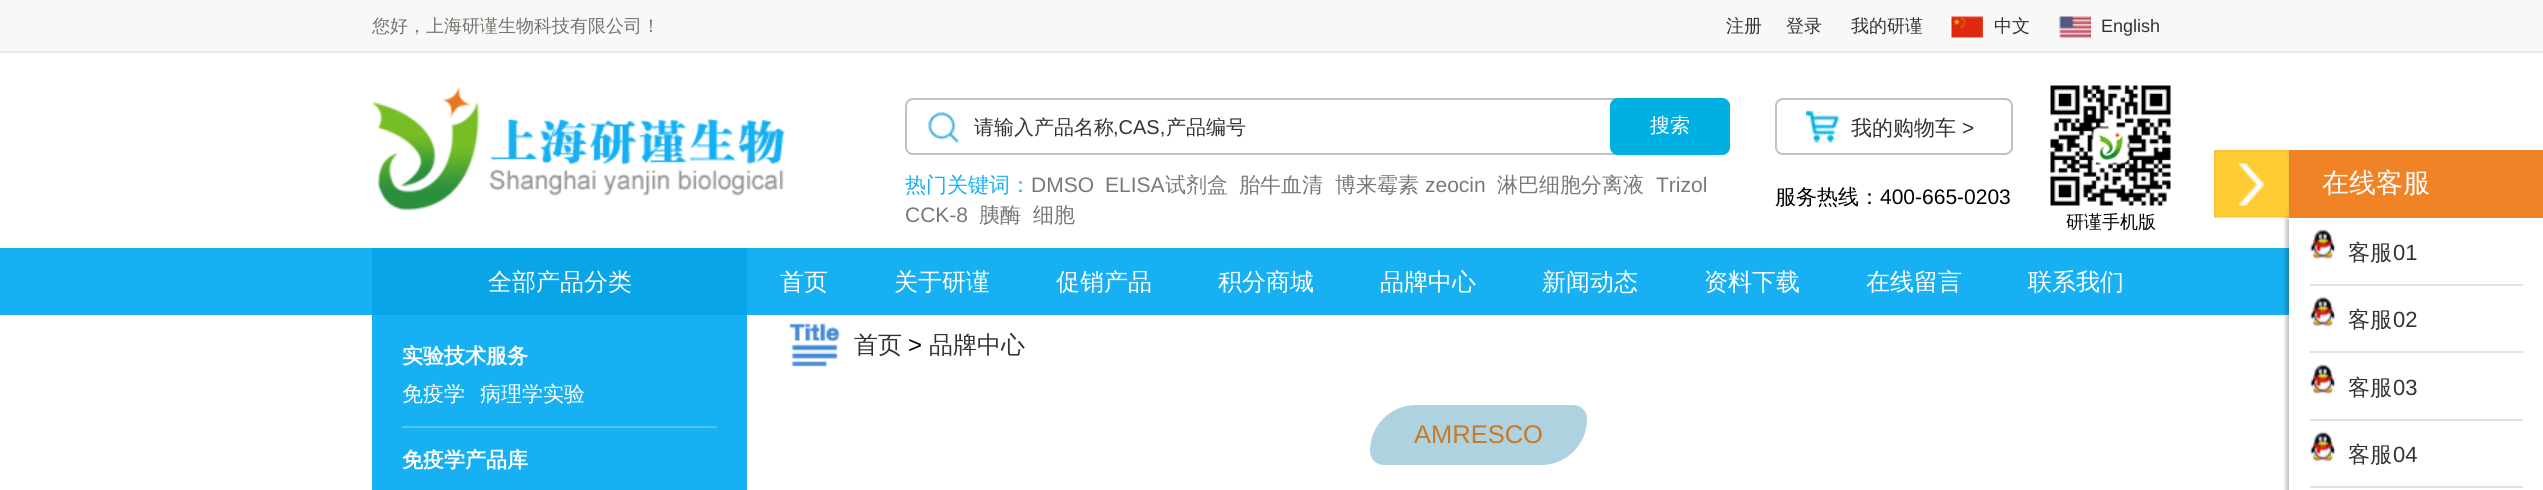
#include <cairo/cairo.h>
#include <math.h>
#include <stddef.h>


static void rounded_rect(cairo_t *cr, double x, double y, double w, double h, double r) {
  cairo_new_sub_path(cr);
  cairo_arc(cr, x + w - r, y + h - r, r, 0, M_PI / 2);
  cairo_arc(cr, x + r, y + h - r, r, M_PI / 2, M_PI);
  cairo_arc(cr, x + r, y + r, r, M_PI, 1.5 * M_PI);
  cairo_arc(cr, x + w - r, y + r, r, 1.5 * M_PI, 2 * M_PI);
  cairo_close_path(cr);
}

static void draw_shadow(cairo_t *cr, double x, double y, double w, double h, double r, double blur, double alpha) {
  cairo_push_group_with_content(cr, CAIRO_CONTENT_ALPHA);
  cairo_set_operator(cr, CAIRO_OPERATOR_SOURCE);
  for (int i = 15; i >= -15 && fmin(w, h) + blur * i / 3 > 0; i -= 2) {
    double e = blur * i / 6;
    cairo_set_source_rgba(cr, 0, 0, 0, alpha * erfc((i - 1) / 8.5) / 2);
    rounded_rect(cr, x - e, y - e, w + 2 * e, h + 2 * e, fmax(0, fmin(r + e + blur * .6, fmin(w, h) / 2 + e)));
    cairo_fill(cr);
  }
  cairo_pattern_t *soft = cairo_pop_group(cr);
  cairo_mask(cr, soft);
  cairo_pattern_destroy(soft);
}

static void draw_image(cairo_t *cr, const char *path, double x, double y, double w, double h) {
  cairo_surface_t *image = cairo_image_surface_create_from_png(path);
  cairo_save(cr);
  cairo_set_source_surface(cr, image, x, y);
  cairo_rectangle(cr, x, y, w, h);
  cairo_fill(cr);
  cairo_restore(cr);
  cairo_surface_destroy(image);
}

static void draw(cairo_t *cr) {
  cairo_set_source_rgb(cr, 1, 1, 1);
  cairo_paint(cr);
  cairo_set_source_rgb(cr, 248 / 255.0, 248 / 255.0, 248 / 255.0);
  cairo_rectangle(cr, 0, 0, 2543, 51);
  cairo_fill(cr);
  cairo_set_source_rgb(cr, 235 / 255.0, 235 / 255.0, 235 / 255.0);
  cairo_rectangle(cr, 0, 51, 2543, 2);
  cairo_fill(cr);
  draw_image(cr, "images/1.png", 1951, 16, 32, 22);
  draw_image(cr, "images/2.png", 2059, 16, 32, 22);
  draw_image(cr, "images/3.png", 372, 86, 413, 124);
  rounded_rect(cr, 906, 99, 823, 55, 7);
  cairo_set_source_rgb(cr, 193 / 255.0, 193 / 255.0, 193 / 255.0);
  cairo_stroke(cr);
  draw_image(cr, "images/4.png", 928, 112, 31, 31);
  cairo_set_source_rgb(cr, 0, 176 / 255.0, 226 / 255.0);
  rounded_rect(cr, 1610, 98, 120, 57, 8);
  cairo_fill(cr);
  draw_image(cr, "images/5.png", 1806, 110, 33, 33);
  rounded_rect(cr, 1776, 99, 236, 55, 7);
  cairo_set_source_rgb(cr, 193 / 255.0, 193 / 255.0, 193 / 255.0);
  cairo_stroke(cr);
  draw_image(cr, "images/6.png", 2050, 85, 121, 121);
  draw_image(cr, "images/7.png", 2214, 150, 75, 68);
  cairo_set_source_rgb(cr, 23 / 255.0, 176 / 255.0, 243 / 255.0);
  cairo_rectangle(cr, 0, 248, 2289, 67);
  cairo_fill(cr);
  cairo_save(cr);
  cairo_rectangle(cr, 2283, 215, 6, 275);
  cairo_clip(cr);
  cairo_set_source_rgb(cr, 0, 0, 0);
  draw_shadow(cr, 2286, 218, 255, 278, 0, 2, 0.25);
  cairo_restore(cr);
  cairo_set_source_rgb(cr, 240 / 255.0, 131 / 255.0, 38 / 255.0);
  cairo_rectangle(cr, 2289, 150, 254, 68);
  cairo_fill(cr);
  cairo_set_source_rgb(cr, 227 / 255.0, 227 / 255.0, 227 / 255.0);
  cairo_rectangle(cr, 2310, 284, 213, 2);
  cairo_fill(cr);
  draw_image(cr, "images/8.png", 2310, 229, 26, 30);
  cairo_rectangle(cr, 2310, 351, 213, 2);
  cairo_fill(cr);
  draw_image(cr, "images/9.png", 2310, 296, 26, 31);
  cairo_rectangle(cr, 2310, 419, 213, 2);
  cairo_fill(cr);
  draw_image(cr, "images/8.png", 2310, 364, 26, 30);
  cairo_rectangle(cr, 2310, 486, 213, 2);
  cairo_fill(cr);
  draw_image(cr, "images/9.png", 2310, 431, 26, 31);
  cairo_set_source_rgb(cr, 8 / 255.0, 165 / 255.0, 232 / 255.0);
  cairo_rectangle(cr, 372, 248, 375, 67);
  cairo_fill(cr);
  cairo_set_source_rgb(cr, 23 / 255.0, 176 / 255.0, 243 / 255.0);
  cairo_rectangle(cr, 372, 315, 375, 175);
  cairo_fill(cr);
  cairo_set_source_rgb(cr, 80 / 255.0, 196 / 255.0, 245 / 255.0);
  cairo_rectangle(cr, 402, 426, 315, 2);
  cairo_fill(cr);
  draw_image(cr, "images/10.png", 788, 323, 53, 44);
  cairo_set_source_rgb(cr, 174 / 255.0, 210 / 255.0, 224 / 255.0);
  cairo_new_path(cr);
  cairo_move_to(cr, 1416, 405);
  cairo_line_to(cr, 1573, 405);
  cairo_curve_to(cr, 1581, 405, 1587, 411, 1587, 419);
  cairo_curve_to(cr, 1587, 444.5, 1566.5, 465, 1541, 465);
  cairo_line_to(cr, 1384, 465);
  cairo_curve_to(cr, 1376, 465, 1370, 459, 1370, 451);
  cairo_curve_to(cr, 1370, 425.5, 1390.5, 405, 1416, 405);
  cairo_close_path(cr);
  cairo_fill(cr);
  cairo_select_font_face(cr, "WenQuanYi Zen Hei Medium", CAIRO_FONT_SLANT_NORMAL, CAIRO_FONT_WEIGHT_NORMAL);
  cairo_set_font_size(cr, 18);
  cairo_set_source_rgb(cr, 116 / 255.0, 115 / 255.0, 109 / 255.0);
  cairo_move_to(cr, 372, 32);
  cairo_show_text(cr, "您好，上海研谨生物科技有限公司！");
  cairo_set_source_rgb(cr, 51 / 255.0, 51 / 255.0, 51 / 255.0);
  cairo_move_to(cr, 1726, 32);
  cairo_show_text(cr, "注册");
  cairo_move_to(cr, 1786, 32);
  cairo_show_text(cr, "登录");
  cairo_move_to(cr, 1851, 32);
  cairo_show_text(cr, "我的研谨");
  cairo_move_to(cr, 1994, 32);
  cairo_show_text(cr, "中文");
  cairo_select_font_face(cr, "Liberation Sans", CAIRO_FONT_SLANT_NORMAL, CAIRO_FONT_WEIGHT_NORMAL);
  cairo_move_to(cr, 2101, 32);
  cairo_show_text(cr, "English");
  cairo_select_font_face(cr, "WenQuanYi Zen Hei Medium", CAIRO_FONT_SLANT_NORMAL, CAIRO_FONT_WEIGHT_NORMAL);
  cairo_set_font_size(cr, 20);
  cairo_move_to(cr, 974, 134);
  cairo_show_text(cr, "请输入产品名称");
  cairo_select_font_face(cr, "Liberation Sans", CAIRO_FONT_SLANT_NORMAL, CAIRO_FONT_WEIGHT_NORMAL);
  cairo_move_to(cr, 1113, 134);
  cairo_show_text(cr, ",CAS,");
  cairo_select_font_face(cr, "WenQuanYi Zen Hei Medium", CAIRO_FONT_SLANT_NORMAL, CAIRO_FONT_WEIGHT_NORMAL);
  cairo_move_to(cr, 1166, 134);
  cairo_show_text(cr, "产品编号");
  cairo_set_source_rgb(cr, 1, 1, 1);
  cairo_move_to(cr, 1650, 132);
  cairo_show_text(cr, "搜索");
  cairo_set_font_size(cr, 21);
  cairo_set_source_rgb(cr, 23 / 255.0, 176 / 255.0, 243 / 255.0);
  cairo_move_to(cr, 905, 192);
  cairo_show_text(cr, "热门关键词：");
  cairo_select_font_face(cr, "Liberation Sans", CAIRO_FONT_SLANT_NORMAL, CAIRO_FONT_WEIGHT_NORMAL);
  cairo_set_source_rgb(cr, 120 / 255.0, 120 / 255.0, 122 / 255.0);
  cairo_move_to(cr, 1031, 192);
  cairo_show_text(cr, "DMSO");
  cairo_move_to(cr, 1105, 192);
  cairo_show_text(cr, "ELISA");
  cairo_select_font_face(cr, "WenQuanYi Zen Hei Medium", CAIRO_FONT_SLANT_NORMAL, CAIRO_FONT_WEIGHT_NORMAL);
  cairo_move_to(cr, 1165, 192);
  cairo_show_text(cr, "试剂盒");
  cairo_move_to(cr, 1239, 192);
  cairo_show_text(cr, "胎牛血清");
  cairo_move_to(cr, 1335, 192);
  cairo_show_text(cr, "博来霉素");
  cairo_select_font_face(cr, "Liberation Sans", CAIRO_FONT_SLANT_NORMAL, CAIRO_FONT_WEIGHT_NORMAL);
  cairo_move_to(cr, 1425, 192);
  cairo_show_text(cr, "zeocin");
  cairo_select_font_face(cr, "WenQuanYi Zen Hei Medium", CAIRO_FONT_SLANT_NORMAL, CAIRO_FONT_WEIGHT_NORMAL);
  cairo_move_to(cr, 1497, 192);
  cairo_show_text(cr, "淋巴细胞分离液");
  cairo_select_font_face(cr, "Liberation Sans", CAIRO_FONT_SLANT_NORMAL, CAIRO_FONT_WEIGHT_NORMAL);
  cairo_move_to(cr, 1656, 192);
  cairo_show_text(cr, "Trizol");
  cairo_move_to(cr, 905, 222);
  cairo_show_text(cr, "CCK-8");
  cairo_select_font_face(cr, "WenQuanYi Zen Hei Medium", CAIRO_FONT_SLANT_NORMAL, CAIRO_FONT_WEIGHT_NORMAL);
  cairo_move_to(cr, 979, 222);
  cairo_show_text(cr, "胰酶");
  cairo_move_to(cr, 1033, 222);
  cairo_show_text(cr, "细胞");
  cairo_set_source_rgb(cr, 51 / 255.0, 51 / 255.0, 51 / 255.0);
  cairo_move_to(cr, 1851, 135);
  cairo_show_text(cr, "我的购物车");
  cairo_select_font_face(cr, "Liberation Sans", CAIRO_FONT_SLANT_NORMAL, CAIRO_FONT_WEIGHT_NORMAL);
  cairo_move_to(cr, 1962, 135);
  cairo_show_text(cr, ">");
  cairo_select_font_face(cr, "WenQuanYi Zen Hei Medium", CAIRO_FONT_SLANT_NORMAL, CAIRO_FONT_WEIGHT_NORMAL);
  cairo_set_source_rgb(cr, 1 / 255.0, 1 / 255.0, 1 / 255.0);
  cairo_move_to(cr, 1775, 204);
  cairo_show_text(cr, "服务热线：");
  cairo_select_font_face(cr, "Liberation Sans", CAIRO_FONT_SLANT_NORMAL, CAIRO_FONT_WEIGHT_NORMAL);
  cairo_move_to(cr, 1880, 204);
  cairo_show_text(cr, "400-665-0203");
  cairo_select_font_face(cr, "WenQuanYi Zen Hei Medium", CAIRO_FONT_SLANT_NORMAL, CAIRO_FONT_WEIGHT_NORMAL);
  cairo_set_font_size(cr, 18);
  cairo_move_to(cr, 2066, 228);
  cairo_show_text(cr, "研谨手机版");
  cairo_set_font_size(cr, 27);
  cairo_set_source_rgb(cr, 1, 1, 1);
  cairo_move_to(cr, 2322, 192);
  cairo_show_text(cr, "在线客服");
  cairo_set_font_size(cr, 22);
  cairo_set_source_rgb(cr, 51 / 255.0, 51 / 255.0, 51 / 255.0);
  cairo_move_to(cr, 2348, 260);
  cairo_show_text(cr, "客服");
  cairo_select_font_face(cr, "Liberation Sans", CAIRO_FONT_SLANT_NORMAL, CAIRO_FONT_WEIGHT_NORMAL);
  cairo_move_to(cr, 2393, 260);
  cairo_show_text(cr, "01");
  cairo_select_font_face(cr, "WenQuanYi Zen Hei Medium", CAIRO_FONT_SLANT_NORMAL, CAIRO_FONT_WEIGHT_NORMAL);
  cairo_move_to(cr, 2348, 327);
  cairo_show_text(cr, "客服");
  cairo_select_font_face(cr, "Liberation Sans", CAIRO_FONT_SLANT_NORMAL, CAIRO_FONT_WEIGHT_NORMAL);
  cairo_move_to(cr, 2393, 327);
  cairo_show_text(cr, "02");
  cairo_select_font_face(cr, "WenQuanYi Zen Hei Medium", CAIRO_FONT_SLANT_NORMAL, CAIRO_FONT_WEIGHT_NORMAL);
  cairo_move_to(cr, 2348, 395);
  cairo_show_text(cr, "客服");
  cairo_select_font_face(cr, "Liberation Sans", CAIRO_FONT_SLANT_NORMAL, CAIRO_FONT_WEIGHT_NORMAL);
  cairo_move_to(cr, 2393, 395);
  cairo_show_text(cr, "03");
  cairo_select_font_face(cr, "WenQuanYi Zen Hei Medium", CAIRO_FONT_SLANT_NORMAL, CAIRO_FONT_WEIGHT_NORMAL);
  cairo_move_to(cr, 2348, 462);
  cairo_show_text(cr, "客服");
  cairo_select_font_face(cr, "Liberation Sans", CAIRO_FONT_SLANT_NORMAL, CAIRO_FONT_WEIGHT_NORMAL);
  cairo_move_to(cr, 2393, 462);
  cairo_show_text(cr, "04");
  cairo_select_font_face(cr, "WenQuanYi Zen Hei Medium", CAIRO_FONT_SLANT_NORMAL, CAIRO_FONT_WEIGHT_NORMAL);
  cairo_set_font_size(cr, 24);
  cairo_set_source_rgb(cr, 1, 1, 1);
  cairo_move_to(cr, 488, 290);
  cairo_show_text(cr, "全部产品分类");
  cairo_move_to(cr, 780, 290);
  cairo_show_text(cr, "首页");
  cairo_move_to(cr, 894, 290);
  cairo_show_text(cr, "关于研谨");
  cairo_move_to(cr, 1056, 290);
  cairo_show_text(cr, "促销产品");
  cairo_move_to(cr, 1218, 290);
  cairo_show_text(cr, "积分商城");
  cairo_move_to(cr, 1380, 290);
  cairo_show_text(cr, "品牌中心");
  cairo_move_to(cr, 1542, 290);
  cairo_show_text(cr, "新闻动态");
  cairo_move_to(cr, 1704, 290);
  cairo_show_text(cr, "资料下载");
  cairo_move_to(cr, 1866, 290);
  cairo_show_text(cr, "在线留言");
  cairo_move_to(cr, 2028, 290);
  cairo_show_text(cr, "联系我们");
  cairo_select_font_face(cr, "WenQuanYi Zen Hei", CAIRO_FONT_SLANT_NORMAL, CAIRO_FONT_WEIGHT_BOLD);
  cairo_set_font_size(cr, 21);
  cairo_move_to(cr, 402, 363);
  cairo_show_text(cr, "实验技术服务");
  cairo_select_font_face(cr, "WenQuanYi Zen Hei Medium", CAIRO_FONT_SLANT_NORMAL, CAIRO_FONT_WEIGHT_NORMAL);
  cairo_move_to(cr, 402, 401);
  cairo_show_text(cr, "免疫学");
  cairo_move_to(cr, 480, 401);
  cairo_show_text(cr, "病理学实验");
  cairo_select_font_face(cr, "WenQuanYi Zen Hei", CAIRO_FONT_SLANT_NORMAL, CAIRO_FONT_WEIGHT_BOLD);
  cairo_move_to(cr, 402, 467);
  cairo_show_text(cr, "免疫学产品库");
  cairo_select_font_face(cr, "WenQuanYi Zen Hei Medium", CAIRO_FONT_SLANT_NORMAL, CAIRO_FONT_WEIGHT_NORMAL);
  cairo_set_font_size(cr, 24);
  cairo_set_source_rgb(cr, 51 / 255.0, 51 / 255.0, 51 / 255.0);
  cairo_move_to(cr, 854, 353);
  cairo_show_text(cr, "首页");
  cairo_select_font_face(cr, "Liberation Sans", CAIRO_FONT_SLANT_NORMAL, CAIRO_FONT_WEIGHT_NORMAL);
  cairo_set_source_rgb(cr, 1 / 255.0, 1 / 255.0, 1 / 255.0);
  cairo_move_to(cr, 908, 353);
  cairo_show_text(cr, ">");
  cairo_select_font_face(cr, "WenQuanYi Zen Hei Medium", CAIRO_FONT_SLANT_NORMAL, CAIRO_FONT_WEIGHT_NORMAL);
  cairo_set_source_rgb(cr, 51 / 255.0, 51 / 255.0, 51 / 255.0);
  cairo_move_to(cr, 929, 353);
  cairo_show_text(cr, "品牌中心");
  cairo_select_font_face(cr, "Liberation Sans", CAIRO_FONT_SLANT_NORMAL, CAIRO_FONT_WEIGHT_NORMAL);
  cairo_set_font_size(cr, 25.5);
  cairo_set_source_rgb(cr, 199 / 255.0, 122 / 255.0, 41 / 255.0);
  cairo_move_to(cr, 1414, 443);
  cairo_show_text(cr, "AMRESCO");
}

int main(void) {
  cairo_surface_t *surface = cairo_image_surface_create(CAIRO_FORMAT_RGB24, 2543, 490);
  cairo_t *cr = cairo_create(surface);
  cairo_font_options_t *options = cairo_font_options_create();
  cairo_font_options_set_hint_metrics(options, CAIRO_HINT_METRICS_OFF);
  cairo_font_options_set_hint_style(options, CAIRO_HINT_STYLE_NONE);
  cairo_set_font_options(cr, options);
  cairo_set_miter_limit(cr, 4);
  draw(cr);
  cairo_surface_write_to_png(surface, "out.png");
  cairo_font_options_destroy(options);
  cairo_destroy(cr);
  cairo_surface_destroy(surface);
  return 0;
}
